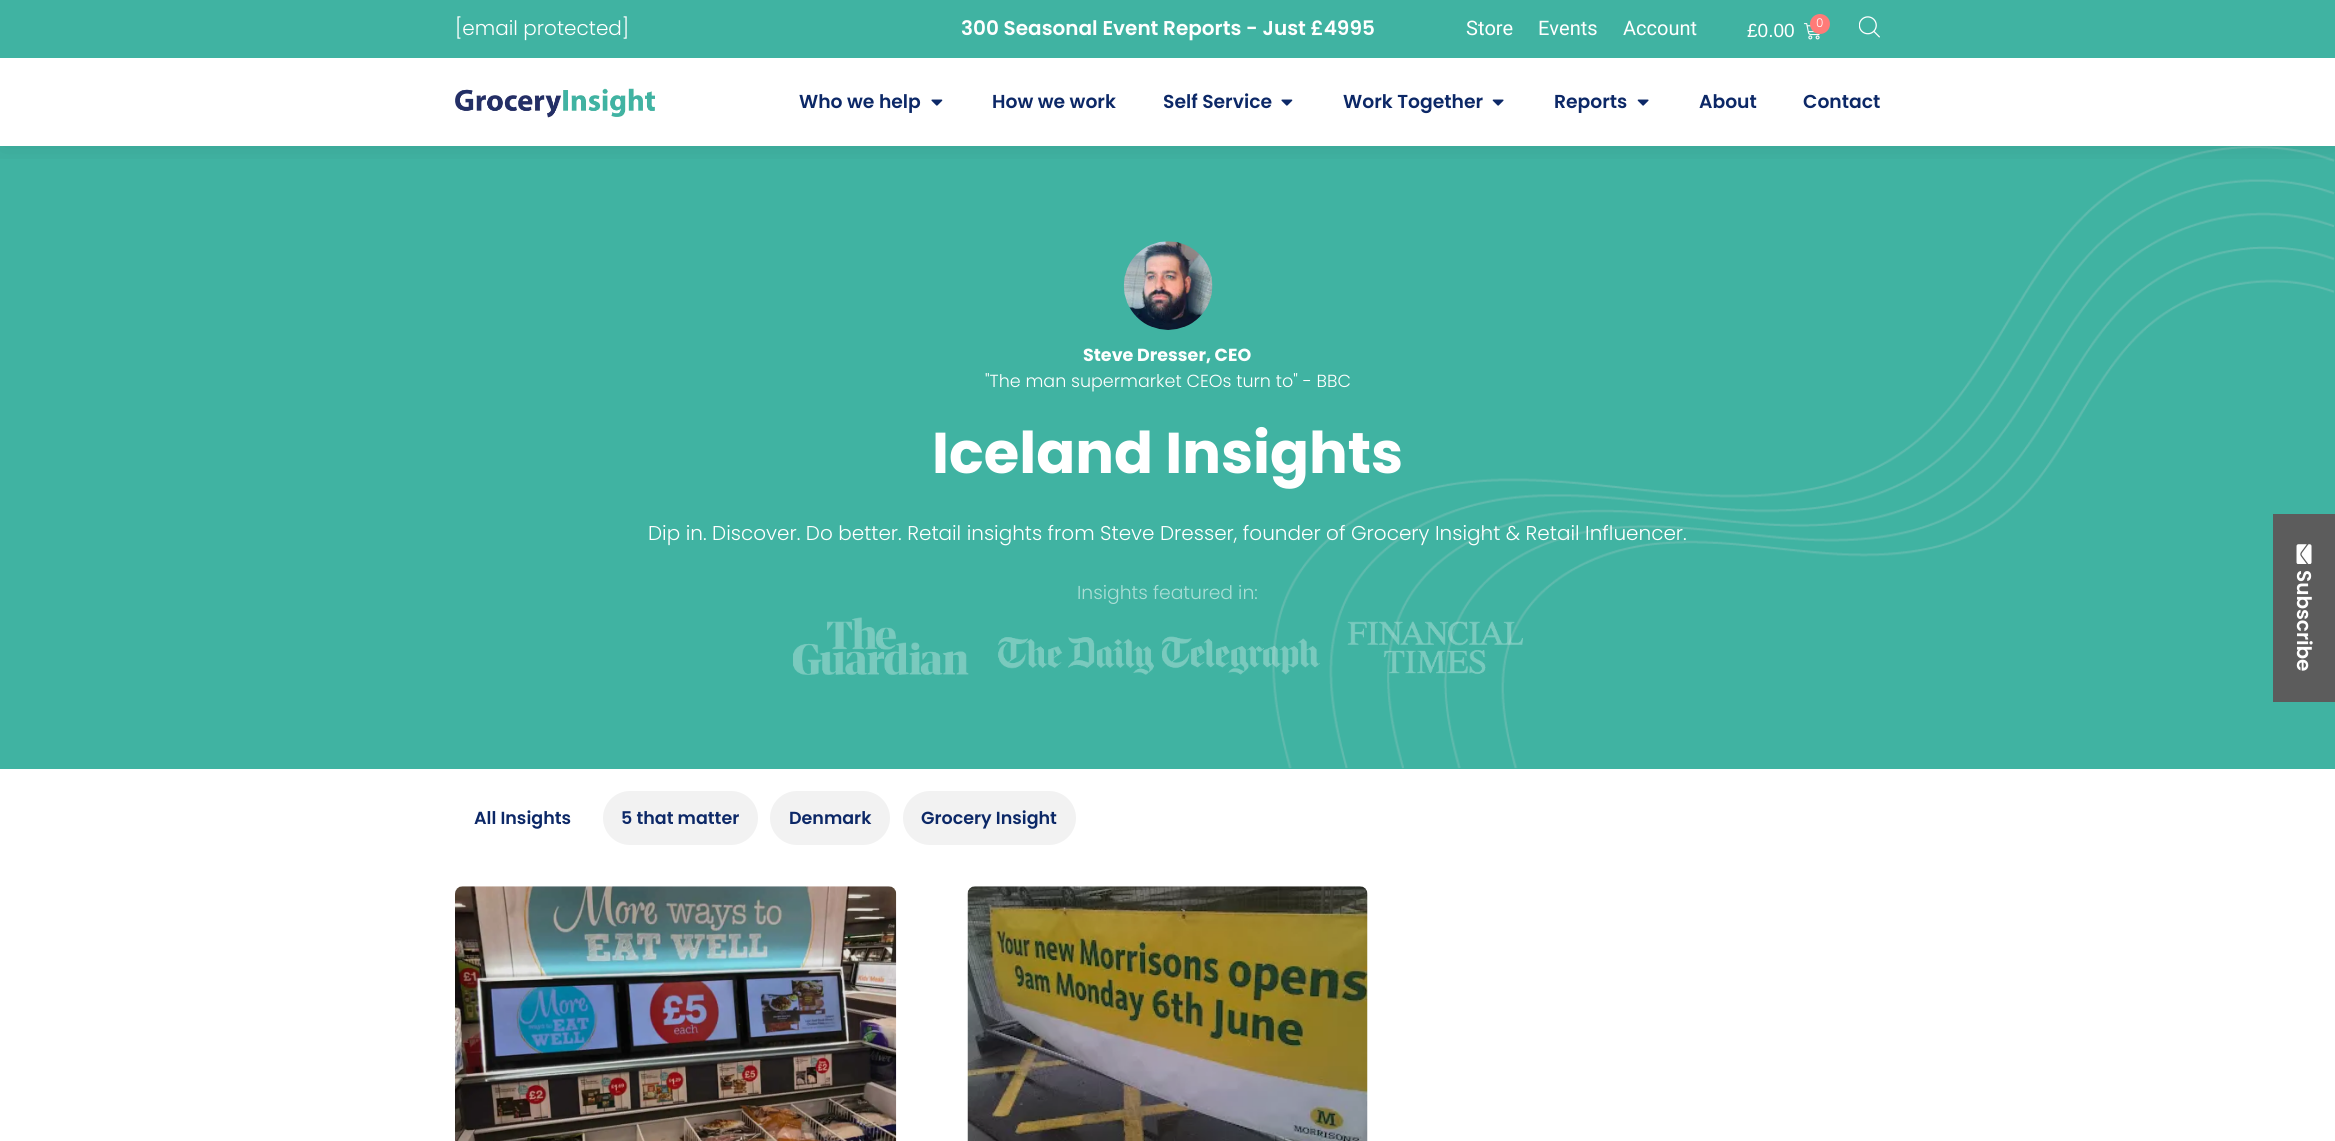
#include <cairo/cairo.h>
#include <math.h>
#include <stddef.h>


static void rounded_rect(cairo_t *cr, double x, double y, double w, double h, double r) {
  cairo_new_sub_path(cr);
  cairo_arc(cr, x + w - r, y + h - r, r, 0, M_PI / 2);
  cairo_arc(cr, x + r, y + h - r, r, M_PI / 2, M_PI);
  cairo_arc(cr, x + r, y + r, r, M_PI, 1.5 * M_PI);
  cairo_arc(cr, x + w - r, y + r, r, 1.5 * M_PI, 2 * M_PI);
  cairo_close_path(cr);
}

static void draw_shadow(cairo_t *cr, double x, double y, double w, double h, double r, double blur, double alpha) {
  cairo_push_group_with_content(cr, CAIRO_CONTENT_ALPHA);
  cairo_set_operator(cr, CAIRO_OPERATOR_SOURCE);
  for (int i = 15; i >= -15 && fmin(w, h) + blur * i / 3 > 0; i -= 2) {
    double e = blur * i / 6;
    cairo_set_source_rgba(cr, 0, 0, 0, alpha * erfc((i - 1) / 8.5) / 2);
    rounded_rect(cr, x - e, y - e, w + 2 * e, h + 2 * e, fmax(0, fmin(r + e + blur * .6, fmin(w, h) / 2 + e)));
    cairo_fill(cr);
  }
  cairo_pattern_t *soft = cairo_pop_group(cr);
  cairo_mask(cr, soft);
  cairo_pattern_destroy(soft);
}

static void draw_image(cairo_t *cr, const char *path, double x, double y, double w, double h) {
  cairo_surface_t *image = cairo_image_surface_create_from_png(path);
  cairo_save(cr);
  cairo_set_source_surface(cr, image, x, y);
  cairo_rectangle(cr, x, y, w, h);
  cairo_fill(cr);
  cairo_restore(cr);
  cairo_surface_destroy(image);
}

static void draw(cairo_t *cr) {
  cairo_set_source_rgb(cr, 1, 1, 1);
  cairo_paint(cr);
  cairo_set_source_rgb(cr, 64 / 255.0, 179 / 255.0, 162 / 255.0);
  cairo_rectangle(cr, 0, 146, 2335, 623);
  cairo_fill(cr);
  draw_image(cr, "images/9.png", 1272, 146, 1063, 623);
  cairo_save(cr);
  cairo_rectangle(cr, 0, 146, 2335, 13);
  cairo_clip(cr);
  cairo_set_source_rgb(cr, 0, 0, 0);
  draw_shadow(cr, 0, 58, 2335, 88, 0, 17, 0.09);
  cairo_restore(cr);
  cairo_rectangle(cr, 0, 0, 2335, 58);
  cairo_fill(cr);
  draw_image(cr, "images/1.png", 1804, 23, 16, 17);
  cairo_set_source_rgb(cr, 1, 123 / 255.0, 120 / 255.0);
  cairo_arc(cr, 1820, 24, 10, 0, 2 * M_PI);
  cairo_fill(cr);
  draw_image(cr, "images/2.png", 1859, 16, 21, 22);
  draw_image(cr, "images/3.png", 455, 88, 200, 30);
  draw_image(cr, "images/4.png", 931, 99, 12, 7);
  draw_image(cr, "images/4.png", 1281, 99, 12, 7);
  draw_image(cr, "images/5.png", 1492, 99, 12, 7);
  draw_image(cr, "images/5.png", 1637, 99, 12, 7);
  cairo_set_source_rgb(cr, 92 / 255.0, 92 / 255.0, 92 / 255.0);
  cairo_rectangle(cr, 2273, 514, 62, 188);
  cairo_fill(cr);
  draw_image(cr, "images/6.png", 2296, 544, 16, 20);
  draw_image(cr, "images/7.png", 1123, 241, 90, 89);
  draw_image(cr, "images/8.png", 793, 617, 730, 58);
  cairo_set_source_rgb(cr, 242 / 255.0, 242 / 255.0, 242 / 255.0);
  rounded_rect(cr, 603, 791, 155, 54, 27);
  cairo_fill(cr);
  rounded_rect(cr, 770, 791, 120, 54, 27);
  cairo_fill(cr);
  rounded_rect(cr, 903, 791, 173, 54, 27);
  cairo_fill(cr);
  draw_image(cr, "images/10.png", 455, 886, 442, 255);
  draw_image(cr, "images/11.png", 967, 886, 401, 255);
  cairo_select_font_face(cr, "Poppins Light", CAIRO_FONT_SLANT_NORMAL, CAIRO_FONT_WEIGHT_NORMAL);
  cairo_set_font_size(cr, 20);
  cairo_set_source_rgb(cr, 1, 1, 1);
  cairo_move_to(cr, 455, 35);
  cairo_show_text(cr, "[email protected]");
  cairo_select_font_face(cr, "Poppins SemiBold", CAIRO_FONT_SLANT_NORMAL, CAIRO_FONT_WEIGHT_NORMAL);
  cairo_move_to(cr, 961, 35);
  cairo_show_text(cr, "300 Seasonal Event Reports - Just £4995");
  cairo_select_font_face(cr, "Roboto", CAIRO_FONT_SLANT_NORMAL, CAIRO_FONT_WEIGHT_NORMAL);
  cairo_move_to(cr, 1466, 35);
  cairo_show_text(cr, "Store");
  cairo_move_to(cr, 1538, 35);
  cairo_show_text(cr, "Events");
  cairo_move_to(cr, 1623, 35);
  cairo_show_text(cr, "Account");
  cairo_select_font_face(cr, "Poppins Light", CAIRO_FONT_SLANT_NORMAL, CAIRO_FONT_WEIGHT_NORMAL);
  cairo_set_font_size(cr, 12);
  cairo_move_to(cr, 1816, 27);
  cairo_show_text(cr, "0");
  cairo_select_font_face(cr, "Liberation Sans", CAIRO_FONT_SLANT_NORMAL, CAIRO_FONT_WEIGHT_NORMAL);
  cairo_set_font_size(cr, 19);
  cairo_move_to(cr, 1747, 37);
  cairo_show_text(cr, "£0.00");
  cairo_select_font_face(cr, "Poppins SemiBold", CAIRO_FONT_SLANT_NORMAL, CAIRO_FONT_WEIGHT_NORMAL);
  cairo_set_font_size(cr, 18.75);
  cairo_set_source_rgb(cr, 12 / 255.0, 40 / 255.0, 103 / 255.0);
  cairo_move_to(cr, 799, 108);
  cairo_show_text(cr, "Who we help");
  cairo_move_to(cr, 992, 108);
  cairo_show_text(cr, "How we work");
  cairo_move_to(cr, 1163, 108);
  cairo_show_text(cr, "Self Service");
  cairo_move_to(cr, 1343, 108);
  cairo_show_text(cr, "Work Together");
  cairo_move_to(cr, 1554, 108);
  cairo_show_text(cr, "Reports");
  cairo_move_to(cr, 1699, 108);
  cairo_show_text(cr, "About");
  cairo_move_to(cr, 1803, 108);
  cairo_show_text(cr, "Contact");
  cairo_set_font_size(cr, 20);
  cairo_set_source_rgb(cr, 1, 1, 1);
  cairo_save(cr);
  cairo_translate(cr, 2297, 570);
  cairo_rotate(cr, 90 * M_PI / 180);
  cairo_move_to(cr, 0, 0);
  cairo_show_text(cr, "Subscribe");
  cairo_restore(cr);
  cairo_select_font_face(cr, "Poppins", CAIRO_FONT_SLANT_NORMAL, CAIRO_FONT_WEIGHT_BOLD);
  cairo_set_font_size(cr, 17.5);
  cairo_move_to(cr, 1083, 361);
  cairo_show_text(cr, "Steve Dresser, CEO");
  cairo_select_font_face(cr, "Poppins Light", CAIRO_FONT_SLANT_NORMAL, CAIRO_FONT_WEIGHT_NORMAL);
  cairo_move_to(cr, 985, 387);
  cairo_show_text(cr, "\"The man supermarket CEOs turn to\" - BBC");
  cairo_select_font_face(cr, "Poppins", CAIRO_FONT_SLANT_NORMAL, CAIRO_FONT_WEIGHT_BOLD);
  cairo_set_font_size(cr, 57.5);
  cairo_move_to(cr, 932, 473);
  cairo_show_text(cr, "Iceland Insights");
  cairo_select_font_face(cr, "Poppins Light", CAIRO_FONT_SLANT_NORMAL, CAIRO_FONT_WEIGHT_NORMAL);
  cairo_set_font_size(cr, 20);
  cairo_move_to(cr, 648, 540);
  cairo_show_text(cr, "Dip in. Discover. Do better. Retail insights from Steve Dresser, founder of Grocery Insight & Retail Influencer.");
  cairo_set_font_size(cr, 18.75);
  cairo_set_source_rgb(cr, 171 / 255.0, 222 / 255.0, 214 / 255.0);
  cairo_move_to(cr, 1077, 599);
  cairo_show_text(cr, "Insights featured in:");
  cairo_select_font_face(cr, "Poppins SemiBold", CAIRO_FONT_SLANT_NORMAL, CAIRO_FONT_WEIGHT_NORMAL);
  cairo_set_font_size(cr, 17.5);
  cairo_set_source_rgb(cr, 12 / 255.0, 40 / 255.0, 103 / 255.0);
  cairo_move_to(cr, 474, 824);
  cairo_show_text(cr, "All Insights");
  cairo_move_to(cr, 621, 824);
  cairo_show_text(cr, "5 that matter");
  cairo_move_to(cr, 789, 824);
  cairo_show_text(cr, "Denmark");
  cairo_move_to(cr, 921, 824);
  cairo_show_text(cr, "Grocery Insight");
}

int main(void) {
  cairo_surface_t *surface = cairo_image_surface_create(CAIRO_FORMAT_RGB24, 2335, 1141);
  cairo_t *cr = cairo_create(surface);
  cairo_font_options_t *options = cairo_font_options_create();
  cairo_font_options_set_hint_metrics(options, CAIRO_HINT_METRICS_OFF);
  cairo_font_options_set_hint_style(options, CAIRO_HINT_STYLE_NONE);
  cairo_set_font_options(cr, options);
  cairo_set_miter_limit(cr, 4);
  draw(cr);
  cairo_surface_write_to_png(surface, "out.png");
  cairo_font_options_destroy(options);
  cairo_destroy(cr);
  cairo_surface_destroy(surface);
  return 0;
}
